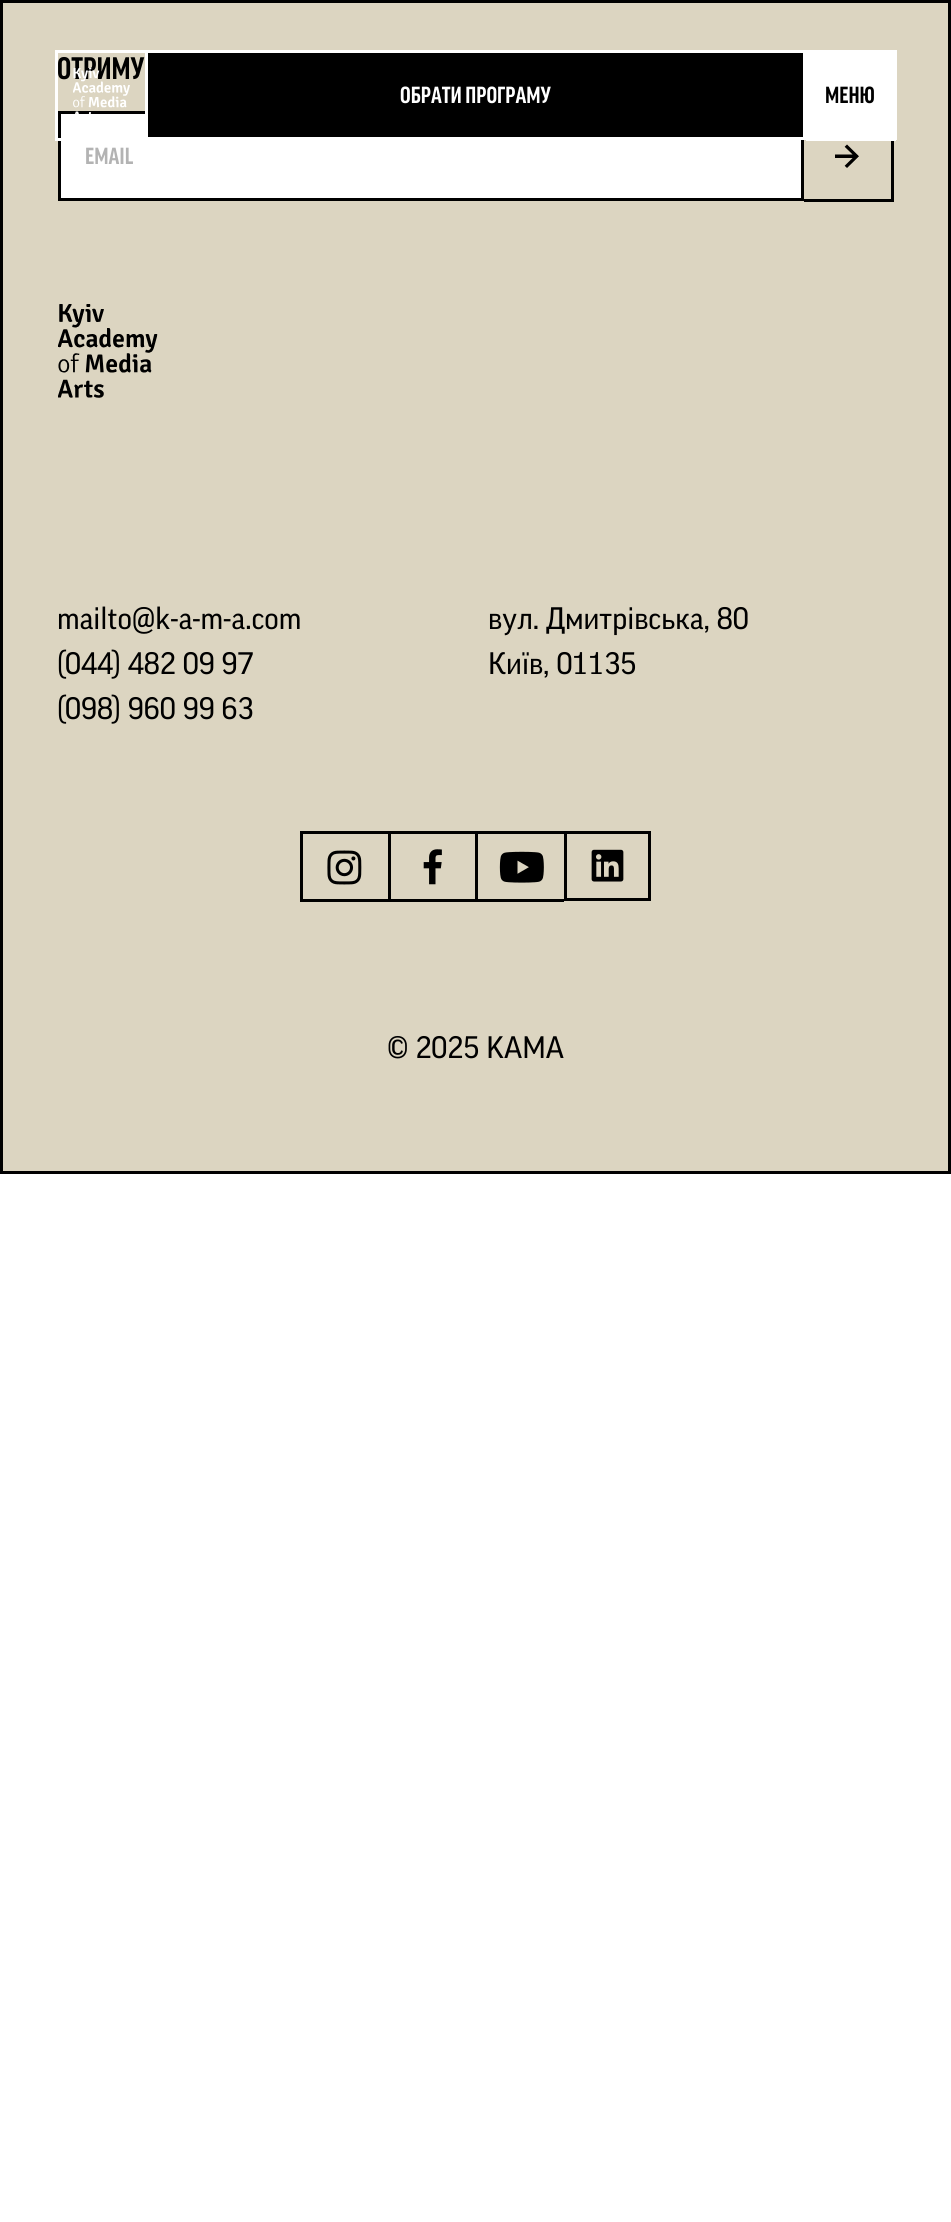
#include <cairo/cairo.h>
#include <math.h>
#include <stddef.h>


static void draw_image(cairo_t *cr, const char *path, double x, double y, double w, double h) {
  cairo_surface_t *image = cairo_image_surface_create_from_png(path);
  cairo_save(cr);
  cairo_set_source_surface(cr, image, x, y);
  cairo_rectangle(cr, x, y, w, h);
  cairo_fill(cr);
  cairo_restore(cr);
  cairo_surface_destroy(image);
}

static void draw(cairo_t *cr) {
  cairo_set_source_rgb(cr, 1, 1, 1);
  cairo_paint(cr);
  cairo_set_source_rgb(cr, 220 / 255.0, 213 / 255.0, 193 / 255.0);
  cairo_rectangle(cr, 1.5, 1.5, 948, 1171);
  cairo_fill_preserve(cr);
  cairo_set_source_rgb(cr, 0, 0, 0);
  cairo_set_line_width(cr, 3);
  cairo_stroke(cr);
  cairo_set_source_rgb(cr, 1, 1, 1);
  cairo_rectangle(cr, 59.5, 112.5, 743, 87);
  cairo_fill_preserve(cr);
  cairo_set_source_rgb(cr, 0, 0, 0);
  cairo_stroke(cr);
  cairo_rectangle(cr, 891, 141, 3, 60);
  cairo_fill(cr);
  cairo_rectangle(cr, 804, 199, 90, 3);
  cairo_fill(cr);
  draw_image(cr, "images/1.png", 835, 144, 24, 24);
  draw_image(cr, "images/2.png", 58, 304, 100, 94);
  cairo_rectangle(cr, 300, 831, 264, 3);
  cairo_fill(cr);
  cairo_rectangle(cr, 300, 899, 264, 3);
  cairo_fill(cr);
  cairo_rectangle(cr, 300, 831, 3, 70);
  cairo_fill(cr);
  draw_image(cr, "images/3.png", 327, 850, 35, 35);
  cairo_rectangle(cr, 388, 831, 3, 70);
  cairo_fill(cr);
  draw_image(cr, "images/4.png", 423, 849, 19, 36);
  cairo_rectangle(cr, 475, 831, 3, 70);
  cairo_fill(cr);
  draw_image(cr, "images/5.png", 499, 851, 45, 32);
  cairo_rectangle(cr, 565.5, 832.5, 84, 67);
  cairo_stroke(cr);
  draw_image(cr, "images/6.png", 591, 849, 33, 33);
  cairo_set_source_rgb(cr, 1, 1, 1);
  cairo_rectangle(cr, 55, 50, 90, 3);
  cairo_fill(cr);
  cairo_rectangle(cr, 55, 138, 6, 3);
  cairo_fill(cr);
  cairo_rectangle(cr, 55, 50, 3, 90);
  cairo_fill(cr);
  cairo_set_source_rgb(cr, 0, 0, 0);
  cairo_rectangle(cr, 146.5, 51.5, 658, 87);
  cairo_fill_preserve(cr);
  cairo_set_source_rgb(cr, 1, 1, 1);
  cairo_stroke(cr);
  cairo_rectangle(cr, 806, 50, 88, 88);
  cairo_fill(cr);
  cairo_rectangle(cr, 894, 50, 3, 90);
  cairo_fill(cr);
  cairo_rectangle(cr, 806, 138, 90, 3);
  cairo_fill(cr);
  cairo_select_font_face(cr, "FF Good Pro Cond", CAIRO_FONT_SLANT_NORMAL, CAIRO_FONT_WEIGHT_BOLD);
  cairo_set_font_size(cr, 30);
  cairo_set_source_rgb(cr, 0, 0, 0);
  cairo_move_to(cr, 57, 79);
  cairo_show_text(cr, "ОТРИМУ");
  cairo_set_font_size(cr, 22.5);
  cairo_set_source_rgb(cr, 179 / 255.0, 179 / 255.0, 179 / 255.0);
  cairo_move_to(cr, 85, 164);
  cairo_show_text(cr, "EMAIL");
  cairo_select_font_face(cr, "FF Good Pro", CAIRO_FONT_SLANT_NORMAL, CAIRO_FONT_WEIGHT_NORMAL);
  cairo_set_font_size(cr, 30);
  cairo_set_source_rgb(cr, 0, 0, 0);
  cairo_move_to(cr, 57, 629);
  cairo_show_text(cr, "mailto@k-a-m-a.com");
  cairo_move_to(cr, 57, 674);
  cairo_show_text(cr, "(044) 482 09 97");
  cairo_move_to(cr, 57, 719);
  cairo_show_text(cr, "(098) 960 99 63");
  cairo_move_to(cr, 488, 629);
  cairo_show_text(cr, "вул. Дмитрівська, 80");
  cairo_move_to(cr, 488, 674);
  cairo_show_text(cr, "Київ, 01135");
  cairo_move_to(cr, 387, 1058);
  cairo_show_text(cr, "© 2025 KAMA");
  draw_image(cr, "images/7.png", 73, 68, 57, 46);
  cairo_select_font_face(cr, "FF Good Pro Cond", CAIRO_FONT_SLANT_NORMAL, CAIRO_FONT_WEIGHT_BOLD);
  cairo_set_font_size(cr, 22.5);
  cairo_set_source_rgb(cr, 1, 1, 1);
  cairo_move_to(cr, 400, 103);
  cairo_show_text(cr, "ОБРАТИ ПРОГРАМУ");
  cairo_set_source_rgb(cr, 0, 0, 0);
  cairo_move_to(cr, 825, 103);
  cairo_show_text(cr, "МЕНЮ");
}

int main(void) {
  cairo_surface_t *surface = cairo_image_surface_create(CAIRO_FORMAT_RGB24, 951, 2222);
  cairo_t *cr = cairo_create(surface);
  cairo_font_options_t *options = cairo_font_options_create();
  cairo_font_options_set_hint_metrics(options, CAIRO_HINT_METRICS_OFF);
  cairo_font_options_set_hint_style(options, CAIRO_HINT_STYLE_NONE);
  cairo_set_font_options(cr, options);
  cairo_set_miter_limit(cr, 4);
  draw(cr);
  cairo_surface_write_to_png(surface, "out.png");
  cairo_font_options_destroy(options);
  cairo_destroy(cr);
  cairo_surface_destroy(surface);
  return 0;
}
